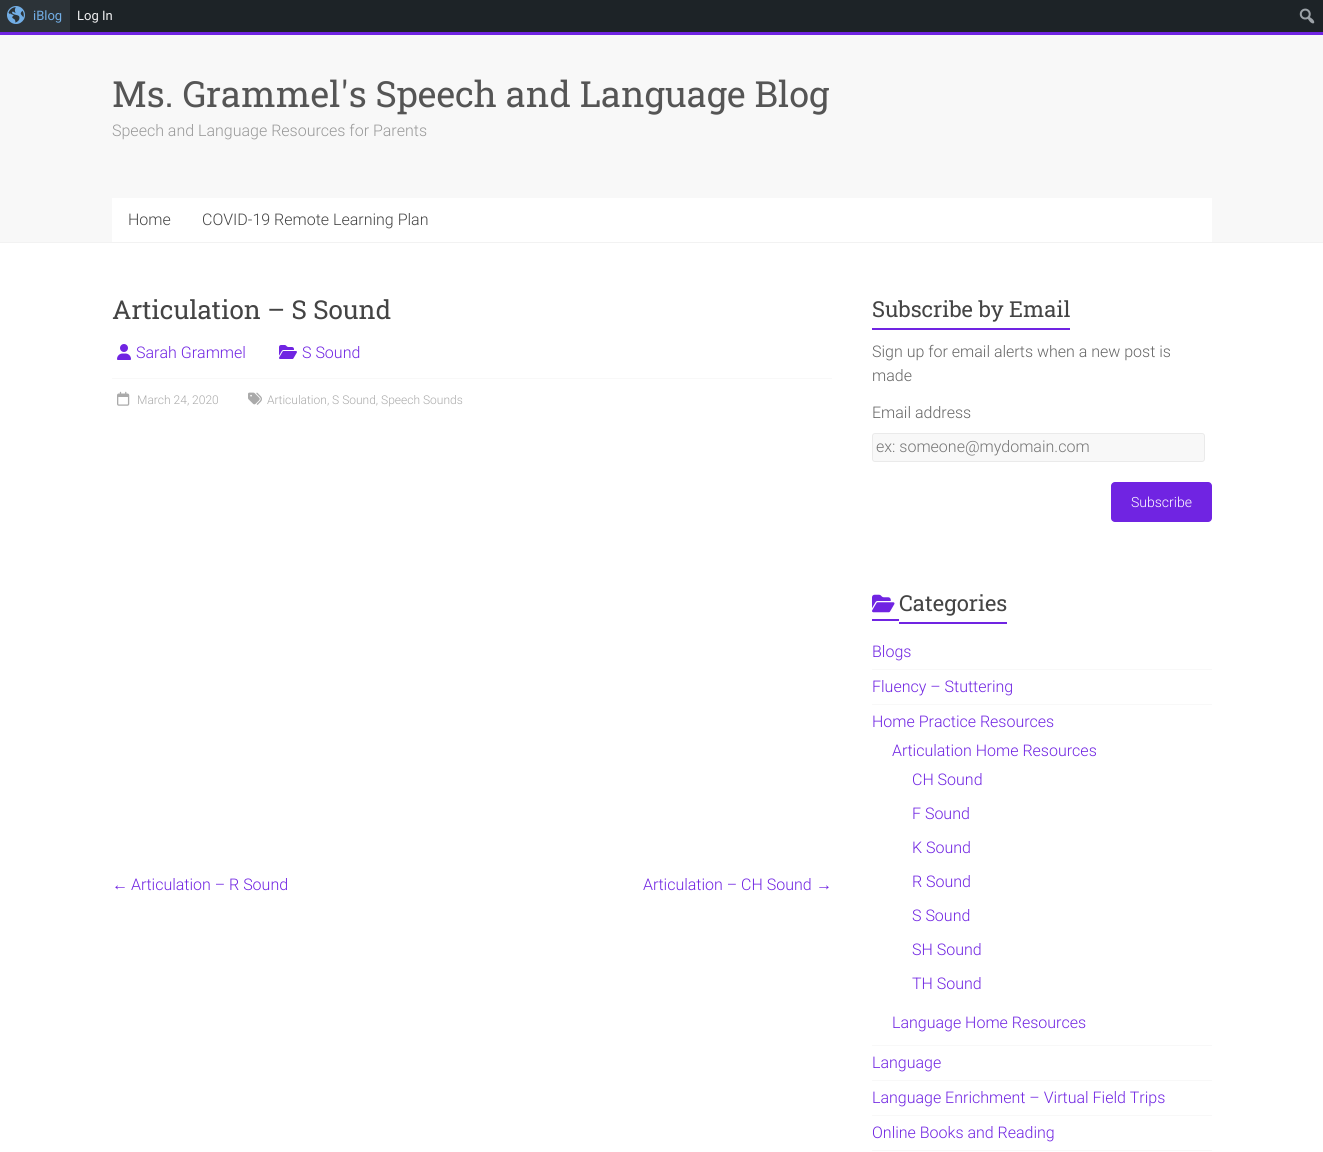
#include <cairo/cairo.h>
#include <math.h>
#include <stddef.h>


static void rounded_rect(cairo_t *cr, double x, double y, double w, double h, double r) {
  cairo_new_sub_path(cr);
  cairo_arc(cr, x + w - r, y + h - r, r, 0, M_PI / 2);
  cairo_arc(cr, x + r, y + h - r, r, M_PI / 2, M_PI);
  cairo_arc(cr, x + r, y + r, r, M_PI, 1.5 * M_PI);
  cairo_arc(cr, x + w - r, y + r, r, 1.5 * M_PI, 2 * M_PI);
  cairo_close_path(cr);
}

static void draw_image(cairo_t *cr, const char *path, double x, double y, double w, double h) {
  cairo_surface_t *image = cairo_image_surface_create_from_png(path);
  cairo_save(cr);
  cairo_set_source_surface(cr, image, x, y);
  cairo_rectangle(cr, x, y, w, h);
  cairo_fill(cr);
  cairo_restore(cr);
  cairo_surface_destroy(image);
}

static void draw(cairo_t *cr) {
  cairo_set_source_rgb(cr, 1, 1, 1);
  cairo_paint(cr);
  cairo_set_source_rgb(cr, 29 / 255.0, 35 / 255.0, 39 / 255.0);
  cairo_rectangle(cr, 70, 0, 1253, 32);
  cairo_fill(cr);
  cairo_set_source_rgb(cr, 44 / 255.0, 51 / 255.0, 56 / 255.0);
  cairo_rectangle(cr, 0, 0, 70, 32);
  cairo_fill(cr);
  draw_image(cr, "images/1.png", 7, 6, 18, 18);
  draw_image(cr, "images/2.png", 1299, 8, 16, 16);
  cairo_set_source_rgb(cr, 112 / 255.0, 36 / 255.0, 226 / 255.0);
  cairo_rectangle(cr, 0, 32, 1323, 3);
  cairo_fill(cr);
  cairo_set_source_rgb(cr, 248 / 255.0, 248 / 255.0, 248 / 255.0);
  cairo_rectangle(cr, 0, 35, 1323, 207);
  cairo_fill(cr);
  cairo_set_source_rgb(cr, 242 / 255.0, 242 / 255.0, 242 / 255.0);
  cairo_rectangle(cr, 0, 242, 1323, 1);
  cairo_fill(cr);
  cairo_set_source_rgb(cr, 1, 1, 1);
  cairo_rectangle(cr, 112, 198, 1100, 44);
  cairo_fill(cr);
  draw_image(cr, "images/3.png", 117, 344, 14, 16);
  draw_image(cr, "images/4.png", 279, 345, 18, 14);
  cairo_set_source_rgb(cr, 248 / 255.0, 248 / 255.0, 248 / 255.0);
  cairo_rectangle(cr, 112, 378, 720, 1);
  cairo_fill(cr);
  draw_image(cr, "images/5.png", 117, 391, 13, 15);
  draw_image(cr, "images/6.png", 248, 392, 14, 13);
  cairo_set_source_rgb(cr, 112 / 255.0, 36 / 255.0, 226 / 255.0);
  cairo_rectangle(cr, 872, 328, 198, 2);
  cairo_fill(cr);
  cairo_set_source_rgb(cr, 248 / 255.0, 248 / 255.0, 248 / 255.0);
  rounded_rect(cr, 872.5, 433.5, 332, 28, 2.5);
  cairo_fill_preserve(cr);
  cairo_set_source_rgb(cr, 234 / 255.0, 234 / 255.0, 234 / 255.0);
  cairo_set_line_width(cr, 1);
  cairo_stroke(cr);
  cairo_set_source_rgb(cr, 112 / 255.0, 36 / 255.0, 226 / 255.0);
  rounded_rect(cr, 1111, 482, 101, 40, 4);
  cairo_fill(cr);
  draw_image(cr, "images/7.png", 872, 594, 23, 19);
  cairo_rectangle(cr, 872, 619, 27, 2);
  cairo_fill(cr);
  cairo_rectangle(cr, 899, 622, 108, 2);
  cairo_fill(cr);
  cairo_set_source_rgb(cr, 248 / 255.0, 248 / 255.0, 248 / 255.0);
  cairo_rectangle(cr, 872, 669, 340, 1);
  cairo_fill(cr);
  cairo_rectangle(cr, 872, 704, 340, 1);
  cairo_fill(cr);
  cairo_rectangle(cr, 872, 1045, 340, 1);
  cairo_fill(cr);
  cairo_rectangle(cr, 872, 1080, 340, 1);
  cairo_fill(cr);
  cairo_rectangle(cr, 872, 1115, 340, 1);
  cairo_fill(cr);
  cairo_rectangle(cr, 872, 1150, 340, 1);
  cairo_fill(cr);
  cairo_select_font_face(cr, "Roboto", CAIRO_FONT_SLANT_NORMAL, CAIRO_FONT_WEIGHT_NORMAL);
  cairo_set_font_size(cr, 13);
  cairo_set_source_rgb(cr, 114 / 255.0, 174 / 255.0, 230 / 255.0);
  cairo_move_to(cr, 33, 20);
  cairo_show_text(cr, "iBlog");
  cairo_set_source_rgb(cr, 240 / 255.0, 240 / 255.0, 241 / 255.0);
  cairo_move_to(cr, 77, 20);
  cairo_show_text(cr, "Log In");
  cairo_select_font_face(cr, "Roboto Slab", CAIRO_FONT_SLANT_NORMAL, CAIRO_FONT_WEIGHT_NORMAL);
  cairo_set_font_size(cr, 36);
  cairo_set_source_rgb(cr, 85 / 255.0, 85 / 255.0, 85 / 255.0);
  cairo_move_to(cr, 112, 107);
  cairo_show_text(cr, "Ms. Grammel's Speech and Language Blog");
  cairo_select_font_face(cr, "Roboto Light", CAIRO_FONT_SLANT_NORMAL, CAIRO_FONT_WEIGHT_NORMAL);
  cairo_set_font_size(cr, 16);
  cairo_set_source_rgb(cr, 153 / 255.0, 153 / 255.0, 153 / 255.0);
  cairo_move_to(cr, 112, 136);
  cairo_show_text(cr, "Speech and Language Resources for Parents");
  cairo_set_source_rgb(cr, 68 / 255.0, 68 / 255.0, 68 / 255.0);
  cairo_move_to(cr, 128, 225);
  cairo_show_text(cr, "Home");
  cairo_move_to(cr, 202, 225);
  cairo_show_text(cr, "COVID-19 Remote Learning Plan");
  cairo_select_font_face(cr, "Roboto Slab", CAIRO_FONT_SLANT_NORMAL, CAIRO_FONT_WEIGHT_NORMAL);
  cairo_set_font_size(cr, 26);
  cairo_move_to(cr, 112, 319);
  cairo_show_text(cr, "Articulation – S Sound");
  cairo_select_font_face(cr, "Roboto Light", CAIRO_FONT_SLANT_NORMAL, CAIRO_FONT_WEIGHT_NORMAL);
  cairo_set_font_size(cr, 16);
  cairo_set_source_rgb(cr, 112 / 255.0, 36 / 255.0, 226 / 255.0);
  cairo_move_to(cr, 136, 358);
  cairo_show_text(cr, "Sarah Grammel");
  cairo_move_to(cr, 302, 358);
  cairo_show_text(cr, "S Sound");
  cairo_set_font_size(cr, 12);
  cairo_set_source_rgb(cr, 170 / 255.0, 170 / 255.0, 170 / 255.0);
  cairo_move_to(cr, 137, 404);
  cairo_show_text(cr, "March 24, 2020");
  cairo_move_to(cr, 267, 404);
  cairo_show_text(cr, "Articulation, S Sound, Speech Sounds");
  cairo_select_font_face(cr, "Liberation Sans", CAIRO_FONT_SLANT_NORMAL, CAIRO_FONT_WEIGHT_NORMAL);
  cairo_set_font_size(cr, 16);
  cairo_set_source_rgb(cr, 112 / 255.0, 36 / 255.0, 226 / 255.0);
  cairo_move_to(cr, 112, 890);
  cairo_show_text(cr, "←");
  cairo_select_font_face(cr, "Roboto Light", CAIRO_FONT_SLANT_NORMAL, CAIRO_FONT_WEIGHT_NORMAL);
  cairo_move_to(cr, 131, 890);
  cairo_show_text(cr, "Articulation – R Sound");
  cairo_move_to(cr, 643, 890);
  cairo_show_text(cr, "Articulation – CH Sound");
  cairo_select_font_face(cr, "Liberation Sans", CAIRO_FONT_SLANT_NORMAL, CAIRO_FONT_WEIGHT_NORMAL);
  cairo_move_to(cr, 816, 890);
  cairo_show_text(cr, "→");
  cairo_select_font_face(cr, "Roboto Slab", CAIRO_FONT_SLANT_NORMAL, CAIRO_FONT_WEIGHT_NORMAL);
  cairo_set_font_size(cr, 22);
  cairo_set_source_rgb(cr, 68 / 255.0, 68 / 255.0, 68 / 255.0);
  cairo_move_to(cr, 872, 317);
  cairo_show_text(cr, "Subscribe by Email");
  cairo_select_font_face(cr, "Roboto Light", CAIRO_FONT_SLANT_NORMAL, CAIRO_FONT_WEIGHT_NORMAL);
  cairo_set_font_size(cr, 16);
  cairo_set_source_rgb(cr, 102 / 255.0, 102 / 255.0, 102 / 255.0);
  cairo_move_to(cr, 872, 357);
  cairo_show_text(cr, "Sign up for email alerts when a new post is");
  cairo_move_to(cr, 872, 381);
  cairo_show_text(cr, "made");
  cairo_move_to(cr, 872, 418);
  cairo_show_text(cr, "Email address");
  cairo_set_source_rgb(cr, 117 / 255.0, 117 / 255.0, 117 / 255.0);
  cairo_move_to(cr, 876, 452);
  cairo_show_text(cr, "ex: someone@mydomain.com");
  cairo_set_font_size(cr, 14);
  cairo_set_source_rgb(cr, 1, 1, 1);
  cairo_move_to(cr, 1131, 507);
  cairo_show_text(cr, "Subscribe");
  cairo_select_font_face(cr, "Roboto Slab", CAIRO_FONT_SLANT_NORMAL, CAIRO_FONT_WEIGHT_NORMAL);
  cairo_set_font_size(cr, 22);
  cairo_set_source_rgb(cr, 68 / 255.0, 68 / 255.0, 68 / 255.0);
  cairo_move_to(cr, 899, 611);
  cairo_show_text(cr, "Categories");
  cairo_select_font_face(cr, "Roboto Light", CAIRO_FONT_SLANT_NORMAL, CAIRO_FONT_WEIGHT_NORMAL);
  cairo_set_font_size(cr, 16);
  cairo_set_source_rgb(cr, 112 / 255.0, 36 / 255.0, 226 / 255.0);
  cairo_move_to(cr, 872, 657);
  cairo_show_text(cr, "Blogs");
  cairo_move_to(cr, 872, 692);
  cairo_show_text(cr, "Fluency – Stuttering");
  cairo_move_to(cr, 872, 727);
  cairo_show_text(cr, "Home Practice Resources");
  cairo_move_to(cr, 892, 756);
  cairo_show_text(cr, "Articulation Home Resources");
  cairo_move_to(cr, 912, 785);
  cairo_show_text(cr, "CH Sound");
  cairo_move_to(cr, 912, 819);
  cairo_show_text(cr, "F Sound");
  cairo_move_to(cr, 912, 853);
  cairo_show_text(cr, "K Sound");
  cairo_move_to(cr, 912, 887);
  cairo_show_text(cr, "R Sound");
  cairo_move_to(cr, 912, 921);
  cairo_show_text(cr, "S Sound");
  cairo_move_to(cr, 912, 955);
  cairo_show_text(cr, "SH Sound");
  cairo_move_to(cr, 912, 989);
  cairo_show_text(cr, "TH Sound");
  cairo_move_to(cr, 892, 1028);
  cairo_show_text(cr, "Language Home Resources");
  cairo_move_to(cr, 872, 1068);
  cairo_show_text(cr, "Language");
  cairo_move_to(cr, 872, 1103);
  cairo_show_text(cr, "Language Enrichment – Virtual Field Trips");
  cairo_move_to(cr, 872, 1138);
  cairo_show_text(cr, "Online Books and Reading");
}

int main(void) {
  cairo_surface_t *surface = cairo_image_surface_create(CAIRO_FORMAT_RGB24, 1323, 1152);
  cairo_t *cr = cairo_create(surface);
  cairo_font_options_t *options = cairo_font_options_create();
  cairo_font_options_set_hint_metrics(options, CAIRO_HINT_METRICS_OFF);
  cairo_font_options_set_hint_style(options, CAIRO_HINT_STYLE_NONE);
  cairo_set_font_options(cr, options);
  cairo_set_miter_limit(cr, 4);
  draw(cr);
  cairo_surface_write_to_png(surface, "out.png");
  cairo_font_options_destroy(options);
  cairo_destroy(cr);
  cairo_surface_destroy(surface);
  return 0;
}
